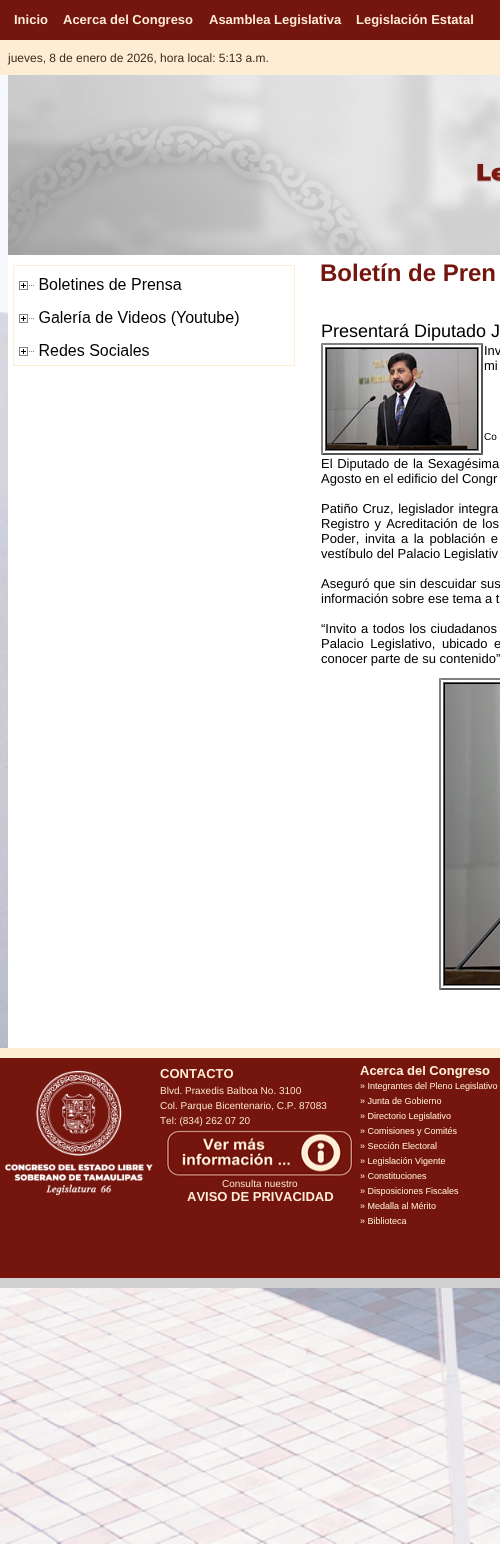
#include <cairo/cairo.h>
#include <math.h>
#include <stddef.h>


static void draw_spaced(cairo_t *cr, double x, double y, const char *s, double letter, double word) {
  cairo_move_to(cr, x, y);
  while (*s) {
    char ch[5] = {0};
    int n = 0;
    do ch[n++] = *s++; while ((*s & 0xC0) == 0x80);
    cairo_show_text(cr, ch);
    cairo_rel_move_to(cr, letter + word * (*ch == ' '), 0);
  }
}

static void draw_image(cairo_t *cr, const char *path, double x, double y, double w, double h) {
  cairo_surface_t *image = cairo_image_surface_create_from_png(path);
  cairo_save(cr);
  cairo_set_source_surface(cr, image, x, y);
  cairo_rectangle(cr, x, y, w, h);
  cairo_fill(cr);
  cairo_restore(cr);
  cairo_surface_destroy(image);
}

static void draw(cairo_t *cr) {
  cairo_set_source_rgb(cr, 1, 1, 1);
  cairo_paint(cr);
  draw_image(cr, "images/1.png", 0, 75, 500, 1469);
  cairo_set_source_rgb(cr, 117 / 255.0, 22 / 255.0, 14 / 255.0);
  cairo_rectangle(cr, 0, 0, 500, 40);
  cairo_fill(cr);
  cairo_set_source_rgb(cr, 254 / 255.0, 237 / 255.0, 213 / 255.0);
  cairo_rectangle(cr, 0, 40, 500, 35);
  cairo_fill(cr);
  draw_image(cr, "images/2.png", 8, 75, 492, 180);
  cairo_set_source_rgb(cr, 1, 1, 1);
  cairo_rectangle(cr, 8, 255, 492, 793);
  cairo_fill(cr);
  draw_image(cr, "images/3.png", 13, 265, 282, 101);
  cairo_set_source_rgb(cr, 128 / 255.0, 128 / 255.0, 128 / 255.0);
  cairo_new_path(cr);
  cairo_move_to(cr, 321, 343);
  cairo_line_to(cr, 483, 343);
  cairo_line_to(cr, 481, 345);
  cairo_line_to(cr, 323, 345);
  cairo_close_path(cr);
  cairo_fill(cr);
  cairo_set_source_rgb(cr, 85 / 255.0, 85 / 255.0, 85 / 255.0);
  cairo_new_path(cr);
  cairo_move_to(cr, 483, 343);
  cairo_line_to(cr, 483, 455);
  cairo_line_to(cr, 481, 453);
  cairo_line_to(cr, 481, 345);
  cairo_close_path(cr);
  cairo_fill(cr);
  cairo_new_path(cr);
  cairo_move_to(cr, 483, 455);
  cairo_line_to(cr, 321, 455);
  cairo_line_to(cr, 323, 453);
  cairo_line_to(cr, 481, 453);
  cairo_close_path(cr);
  cairo_fill(cr);
  cairo_set_source_rgb(cr, 128 / 255.0, 128 / 255.0, 128 / 255.0);
  cairo_new_path(cr);
  cairo_move_to(cr, 321, 455);
  cairo_line_to(cr, 321, 343);
  cairo_line_to(cr, 323, 345);
  cairo_line_to(cr, 323, 453);
  cairo_close_path(cr);
  cairo_fill(cr);
  cairo_set_source_rgb(cr, 85 / 255.0, 85 / 255.0, 85 / 255.0);
  cairo_rectangle(cr, 325, 347, 154, 1);
  cairo_fill(cr);
  cairo_set_source_rgb(cr, 128 / 255.0, 128 / 255.0, 128 / 255.0);
  cairo_rectangle(cr, 478, 347, 1, 104);
  cairo_fill(cr);
  cairo_rectangle(cr, 325, 450, 154, 1);
  cairo_fill(cr);
  cairo_set_source_rgb(cr, 85 / 255.0, 85 / 255.0, 85 / 255.0);
  cairo_rectangle(cr, 325, 347, 1, 104);
  cairo_fill(cr);
  cairo_rectangle(cr, 326.5, 348.5, 151, 101);
  cairo_set_source_rgb(cr, 0, 0, 0);
  cairo_set_line_width(cr, 1);
  cairo_stroke(cr);
  draw_image(cr, "images/4.png", 327, 349, 150, 100);
  cairo_set_source_rgb(cr, 128 / 255.0, 128 / 255.0, 128 / 255.0);
  cairo_new_path(cr);
  cairo_move_to(cr, 439, 678);
  cairo_line_to(cr, 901, 678);
  cairo_line_to(cr, 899, 680);
  cairo_line_to(cr, 441, 680);
  cairo_close_path(cr);
  cairo_fill(cr);
  cairo_set_source_rgb(cr, 85 / 255.0, 85 / 255.0, 85 / 255.0);
  cairo_new_path(cr);
  cairo_move_to(cr, 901, 990);
  cairo_line_to(cr, 439, 990);
  cairo_line_to(cr, 441, 988);
  cairo_line_to(cr, 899, 988);
  cairo_close_path(cr);
  cairo_fill(cr);
  cairo_set_source_rgb(cr, 128 / 255.0, 128 / 255.0, 128 / 255.0);
  cairo_new_path(cr);
  cairo_move_to(cr, 439, 990);
  cairo_line_to(cr, 439, 678);
  cairo_line_to(cr, 441, 680);
  cairo_line_to(cr, 441, 988);
  cairo_close_path(cr);
  cairo_fill(cr);
  cairo_set_source_rgb(cr, 85 / 255.0, 85 / 255.0, 85 / 255.0);
  cairo_rectangle(cr, 443, 682, 57, 1);
  cairo_fill(cr);
  cairo_set_source_rgb(cr, 128 / 255.0, 128 / 255.0, 128 / 255.0);
  cairo_rectangle(cr, 443, 985, 57, 1);
  cairo_fill(cr);
  cairo_set_source_rgb(cr, 85 / 255.0, 85 / 255.0, 85 / 255.0);
  cairo_rectangle(cr, 443, 682, 1, 304);
  cairo_fill(cr);
  cairo_rectangle(cr, 444.5, 683.5, 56, 301);
  cairo_set_source_rgb(cr, 0, 0, 0);
  cairo_stroke(cr);
  draw_image(cr, "images/5.png", 445, 684, 55, 300);
  cairo_set_source_rgb(cr, 254 / 255.0, 237 / 255.0, 213 / 255.0);
  cairo_rectangle(cr, 0, 1048, 500, 10);
  cairo_fill(cr);
  cairo_set_source_rgb(cr, 117 / 255.0, 22 / 255.0, 14 / 255.0);
  cairo_rectangle(cr, 0, 1058, 500, 220);
  cairo_fill(cr);
  draw_image(cr, "images/6.png", 4, 1070, 149, 126);
  draw_image(cr, "images/7.png", 166, 1130, 187, 47);
  draw_image(cr, "images/8.png", 360, 1066, 138, 158);
  cairo_set_source_rgb(cr, 209 / 255.0, 209 / 255.0, 209 / 255.0);
  cairo_rectangle(cr, 0, 1278, 500, 10);
  cairo_fill(cr);
  cairo_select_font_face(cr, "Liberation Sans", CAIRO_FONT_SLANT_NORMAL, CAIRO_FONT_WEIGHT_BOLD);
  cairo_set_font_size(cr, 13);
  cairo_set_source_rgb(cr, 1, 237 / 255.0, 213 / 255.0);
  cairo_move_to(cr, 14, 24);
  cairo_show_text(cr, "Inicio");
  cairo_move_to(cr, 63, 24);
  cairo_show_text(cr, "Acerca del Congreso");
  cairo_move_to(cr, 209, 24);
  cairo_show_text(cr, "Asamblea Legislativa");
  cairo_move_to(cr, 356, 24);
  cairo_show_text(cr, "Legislación Estatal");
  cairo_select_font_face(cr, "Liberation Sans", CAIRO_FONT_SLANT_NORMAL, CAIRO_FONT_WEIGHT_NORMAL);
  cairo_set_font_size(cr, 12);
  cairo_set_source_rgb(cr, 59 / 255.0, 43 / 255.0, 22 / 255.0);
  cairo_move_to(cr, 8, 62);
  cairo_show_text(cr, "jueves, 8 de enero de 2026, hora local: 5:13 a.m.");
  cairo_select_font_face(cr, "Liberation Sans", CAIRO_FONT_SLANT_NORMAL, CAIRO_FONT_WEIGHT_BOLD);
  cairo_set_font_size(cr, 24);
  cairo_set_source_rgb(cr, 117 / 255.0, 22 / 255.0, 14 / 255.0);
  cairo_move_to(cr, 320, 281);
  cairo_show_text(cr, "Boletín de Pren");
  cairo_select_font_face(cr, "Liberation Sans", CAIRO_FONT_SLANT_NORMAL, CAIRO_FONT_WEIGHT_NORMAL);
  cairo_set_font_size(cr, 18);
  cairo_set_source_rgb(cr, 0, 0, 0);
  cairo_move_to(cr, 321, 337);
  cairo_show_text(cr, "Presentará Diputado J");
  cairo_set_font_size(cr, 13);
  draw_spaced(cr, 484, 355, "Inv", 0, 1);
  cairo_move_to(cr, 484, 370);
  cairo_show_text(cr, "mi");
  cairo_set_font_size(cr, 10);
  cairo_move_to(cr, 484, 440);
  cairo_show_text(cr, "Co");
  cairo_set_font_size(cr, 13);
  draw_spaced(cr, 321, 468, "El Diputado de la Sexagésima", 0, 1);
  cairo_move_to(cr, 321, 483);
  cairo_show_text(cr, "Agosto en el edificio del Congr");
  draw_spaced(cr, 321, 513, "Patiño Cruz, legislador integra", 0, 1);
  draw_spaced(cr, 321, 528, "Registro y Acreditación de los", 0, 1.5);
  draw_spaced(cr, 321, 543, "Poder, invita a la población e", 0, 2);
  cairo_move_to(cr, 321, 558);
  cairo_show_text(cr, "vestíbulo del Palacio Legislativ");
  draw_spaced(cr, 321, 588, "Aseguró que sin descuidar sus", 0, 0.5);
  cairo_move_to(cr, 321, 603);
  cairo_show_text(cr, "información sobre ese tema a t");
  draw_spaced(cr, 321, 633, "“Invito a todos los ciudadanos", 0, 1);
  draw_spaced(cr, 321, 648, "Palacio Legislativo, ubicado e", 0, 3);
  cairo_move_to(cr, 321, 663);
  cairo_show_text(cr, "conocer parte de su contenido”");
  cairo_select_font_face(cr, "Liberation Sans", CAIRO_FONT_SLANT_NORMAL, CAIRO_FONT_WEIGHT_BOLD);
  cairo_set_source_rgb(cr, 1, 237 / 255.0, 213 / 255.0);
  cairo_move_to(cr, 160, 1078);
  cairo_show_text(cr, "CONTACTO");
  cairo_select_font_face(cr, "Liberation Sans", CAIRO_FONT_SLANT_NORMAL, CAIRO_FONT_WEIGHT_NORMAL);
  cairo_set_font_size(cr, 10);
  cairo_move_to(cr, 160, 1094);
  cairo_show_text(cr, "Blvd. Praxedis Balboa No. 3100");
  cairo_move_to(cr, 160, 1109);
  cairo_show_text(cr, "Col. Parque Bicentenario, C.P. 87083");
  cairo_move_to(cr, 160, 1124);
  cairo_show_text(cr, "Tel: (834) 262 07 20");
  cairo_move_to(cr, 222, 1187);
  cairo_show_text(cr, "Consulta nuestro");
  cairo_select_font_face(cr, "Liberation Sans", CAIRO_FONT_SLANT_NORMAL, CAIRO_FONT_WEIGHT_BOLD);
  cairo_set_font_size(cr, 13);
  cairo_move_to(cr, 187, 1201);
  cairo_show_text(cr, "AVISO DE PRIVACIDAD");
}

int main(void) {
  cairo_surface_t *surface = cairo_image_surface_create(CAIRO_FORMAT_RGB24, 500, 1544);
  cairo_t *cr = cairo_create(surface);
  cairo_font_options_t *options = cairo_font_options_create();
  cairo_font_options_set_hint_metrics(options, CAIRO_HINT_METRICS_OFF);
  cairo_font_options_set_hint_style(options, CAIRO_HINT_STYLE_NONE);
  cairo_set_font_options(cr, options);
  cairo_set_miter_limit(cr, 4);
  draw(cr);
  cairo_surface_write_to_png(surface, "out.png");
  cairo_font_options_destroy(options);
  cairo_destroy(cr);
  cairo_surface_destroy(surface);
  return 0;
}
